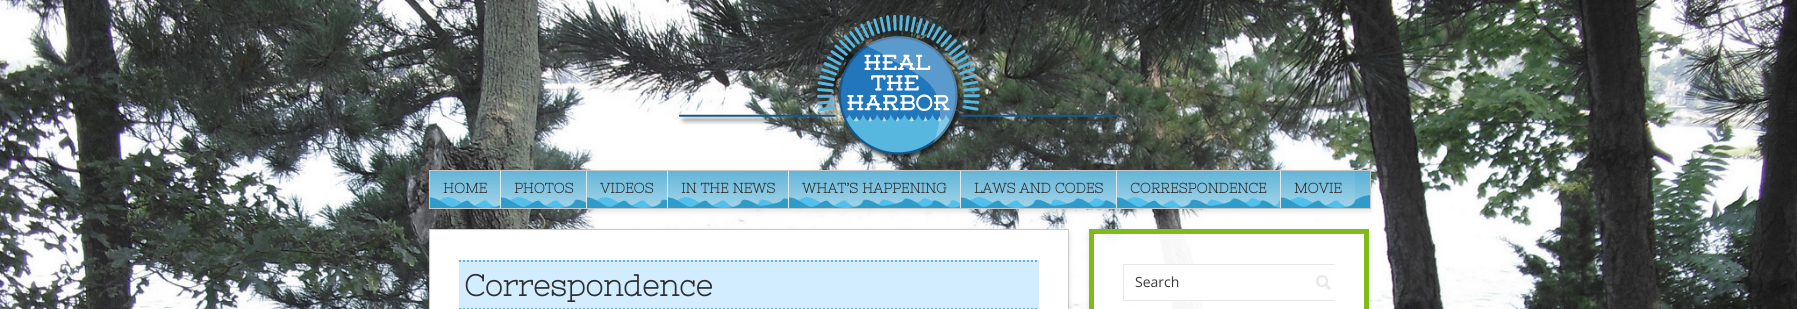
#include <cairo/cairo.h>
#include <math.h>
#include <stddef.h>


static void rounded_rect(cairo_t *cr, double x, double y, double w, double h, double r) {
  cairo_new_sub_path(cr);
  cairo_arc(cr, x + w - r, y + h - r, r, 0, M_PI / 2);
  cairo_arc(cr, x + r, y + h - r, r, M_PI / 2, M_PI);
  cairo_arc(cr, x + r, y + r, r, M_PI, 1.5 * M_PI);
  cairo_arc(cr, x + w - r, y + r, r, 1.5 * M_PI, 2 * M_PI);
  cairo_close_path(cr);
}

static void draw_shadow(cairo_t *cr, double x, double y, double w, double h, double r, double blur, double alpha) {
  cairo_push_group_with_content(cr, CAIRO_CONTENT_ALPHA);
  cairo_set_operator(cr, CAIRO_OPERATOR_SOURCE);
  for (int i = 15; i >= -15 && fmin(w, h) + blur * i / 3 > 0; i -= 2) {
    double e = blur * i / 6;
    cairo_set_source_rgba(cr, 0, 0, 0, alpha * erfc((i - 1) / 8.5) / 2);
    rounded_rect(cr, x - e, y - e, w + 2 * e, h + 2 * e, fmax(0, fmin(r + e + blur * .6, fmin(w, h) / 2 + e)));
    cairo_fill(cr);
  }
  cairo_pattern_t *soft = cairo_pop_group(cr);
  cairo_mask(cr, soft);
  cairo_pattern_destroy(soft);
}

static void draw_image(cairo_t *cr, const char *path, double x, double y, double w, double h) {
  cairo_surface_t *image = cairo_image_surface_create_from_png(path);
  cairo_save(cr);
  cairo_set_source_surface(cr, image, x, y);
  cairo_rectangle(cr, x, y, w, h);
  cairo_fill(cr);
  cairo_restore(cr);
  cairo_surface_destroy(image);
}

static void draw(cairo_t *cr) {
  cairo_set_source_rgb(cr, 1, 1, 1);
  cairo_paint(cr);
  draw_image(cr, "images/1.png", 0, 0, 1797, 309);
  draw_image(cr, "images/2.png", 679, 14, 443, 146);
  cairo_set_source_rgb(cr, 50 / 255.0, 50 / 255.0, 50 / 255.0);
  draw_shadow(cr, 429, 172, 942, 39, 0, 2.5, 0.15);
  draw_image(cr, "images/3.png", 1355, 171, 15, 37);
  cairo_rectangle(cr, 429.5, 170.5, 941, 38);
  cairo_set_source_rgb(cr, 200 / 255.0, 200 / 255.0, 200 / 255.0);
  cairo_set_line_width(cr, 1);
  cairo_stroke(cr);
  cairo_set_source_rgb(cr, 231 / 255.0, 231 / 255.0, 231 / 255.0);
  cairo_rectangle(cr, 500, 171, 1, 37);
  cairo_fill(cr);
  draw_image(cr, "images/4.png", 430, 171, 70, 37);
  cairo_rectangle(cr, 586, 171, 1, 37);
  cairo_fill(cr);
  draw_image(cr, "images/5.png", 501, 171, 85, 37);
  cairo_rectangle(cr, 667, 171, 1, 37);
  cairo_fill(cr);
  draw_image(cr, "images/6.png", 587, 171, 80, 37);
  cairo_rectangle(cr, 788, 171, 1, 37);
  cairo_fill(cr);
  draw_image(cr, "images/7.png", 668, 171, 120, 37);
  cairo_rectangle(cr, 960, 171, 1, 37);
  cairo_fill(cr);
  draw_image(cr, "images/8.png", 789, 171, 171, 37);
  cairo_rectangle(cr, 1116, 171, 1, 37);
  cairo_fill(cr);
  draw_image(cr, "images/9.png", 961, 171, 155, 37);
  cairo_rectangle(cr, 1280, 171, 1, 37);
  cairo_fill(cr);
  draw_image(cr, "images/10.png", 1117, 171, 163, 37);
  draw_image(cr, "images/11.png", 1281, 171, 74, 37);
  cairo_set_source_rgb(cr, 50 / 255.0, 50 / 255.0, 50 / 255.0);
  draw_shadow(cr, 429, 231, 640, 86, 0, 2.5, 0.15);
  cairo_set_source_rgb(cr, 1, 1, 1);
  cairo_rectangle(cr, 429.5, 229.5, 639, 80);
  cairo_fill_preserve(cr);
  cairo_set_source_rgb(cr, 200 / 255.0, 200 / 255.0, 200 / 255.0);
  cairo_stroke(cr);
  cairo_set_source_rgb(cr, 210 / 255.0, 237 / 255.0, 1);
  cairo_rectangle(cr, 459, 260, 580, 49);
  cairo_fill(cr);
  cairo_new_path(cr);
  cairo_move_to(cr, 459, 261);
  cairo_line_to(cr, 1039, 261);
  cairo_set_source_rgb(cr, 87 / 255.0, 183 / 255.0, 223 / 255.0);
  cairo_set_line_width(cr, 2);
  cairo_set_dash(cr, (double[]){2, 2}, 2, 0);
  cairo_stroke(cr);
  cairo_new_path(cr);
  cairo_move_to(cr, 459, 309);
  cairo_line_to(cr, 1039, 309);
  cairo_stroke(cr);
  cairo_save(cr);
  cairo_set_fill_rule(cr, CAIRO_FILL_RULE_EVEN_ODD);
  cairo_new_path(cr);
  cairo_move_to(cr, 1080, 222);
  cairo_line_to(cr, 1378, 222);
  cairo_line_to(cr, 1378, 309);
  cairo_line_to(cr, 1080, 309);
  cairo_close_path(cr);
  cairo_move_to(cr, 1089, 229);
  cairo_line_to(cr, 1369, 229);
  cairo_line_to(cr, 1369, 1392);
  cairo_line_to(cr, 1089, 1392);
  cairo_close_path(cr);
  cairo_clip(cr);
  cairo_set_source_rgb(cr, 50 / 255.0, 50 / 255.0, 50 / 255.0);
  draw_shadow(cr, 1089, 231, 280, 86, 0, 2.5, 0.14);
  cairo_restore(cr);
  cairo_set_source_rgba(cr, 1, 1, 1, 0.95);
  cairo_rectangle(cr, 1089, 229, 280, 80);
  cairo_fill(cr);
  cairo_rectangle(cr, 1091.5, 231.5, 275, 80);
  cairo_set_source_rgba(cr, 122 / 255.0, 184 / 255.0, 14 / 255.0, 0.95);
  cairo_set_line_width(cr, 5);
  cairo_set_dash(cr, NULL, 0, 0);
  cairo_stroke(cr);
  cairo_set_source_rgba(cr, 1, 1, 1, 0.95);
  cairo_rectangle(cr, 1166, 265, 34, 35);
  cairo_fill(cr);
  cairo_save(cr);
  cairo_rectangle(cr, 1123, 264, 212, 37);
  cairo_clip(cr);
  cairo_rectangle(cr, 1123.5, 264.5, 219, 36);
  cairo_set_source_rgb(cr, 232 / 255.0, 232 / 255.0, 232 / 255.0);
  cairo_set_line_width(cr, 1);
  cairo_stroke(cr);
  cairo_restore(cr);
  draw_image(cr, "images/12.png", 1316, 274, 15, 16);
  cairo_select_font_face(cr, "Nixie One", CAIRO_FONT_SLANT_NORMAL, CAIRO_FONT_WEIGHT_BOLD);
  cairo_set_font_size(cr, 14);
  cairo_set_source_rgb(cr, 47 / 255.0, 47 / 255.0, 47 / 255.0);
  cairo_move_to(cr, 443, 193);
  cairo_show_text(cr, "HOME");
  cairo_move_to(cr, 514, 193);
  cairo_show_text(cr, "PHOTOS");
  cairo_move_to(cr, 600, 193);
  cairo_show_text(cr, "VIDEOS");
  cairo_move_to(cr, 681, 193);
  cairo_show_text(cr, "IN THE NEWS");
  cairo_move_to(cr, 802, 193);
  cairo_show_text(cr, "WHAT’S HAPPENING");
  cairo_move_to(cr, 974, 193);
  cairo_show_text(cr, "LAWS AND CODES");
  cairo_move_to(cr, 1130, 193);
  cairo_show_text(cr, "CORRESPONDENCE");
  cairo_move_to(cr, 1294, 193);
  cairo_show_text(cr, "MOVIE");
  cairo_set_font_size(cr, 30);
  cairo_move_to(cr, 464, 296);
  cairo_show_text(cr, "Correspondence");
  cairo_select_font_face(cr, "Open Sans", CAIRO_FONT_SLANT_NORMAL, CAIRO_FONT_WEIGHT_NORMAL);
  cairo_set_font_size(cr, 14);
  cairo_set_source_rgb(cr, 57 / 255.0, 57 / 255.0, 57 / 255.0);
  cairo_move_to(cr, 1135, 287);
  cairo_show_text(cr, "Search");
}

int main(void) {
  cairo_surface_t *surface = cairo_image_surface_create(CAIRO_FORMAT_RGB24, 1797, 309);
  cairo_t *cr = cairo_create(surface);
  cairo_font_options_t *options = cairo_font_options_create();
  cairo_font_options_set_hint_metrics(options, CAIRO_HINT_METRICS_OFF);
  cairo_font_options_set_hint_style(options, CAIRO_HINT_STYLE_NONE);
  cairo_set_font_options(cr, options);
  cairo_set_miter_limit(cr, 4);
  draw(cr);
  cairo_surface_write_to_png(surface, "out.png");
  cairo_font_options_destroy(options);
  cairo_destroy(cr);
  cairo_surface_destroy(surface);
  return 0;
}
